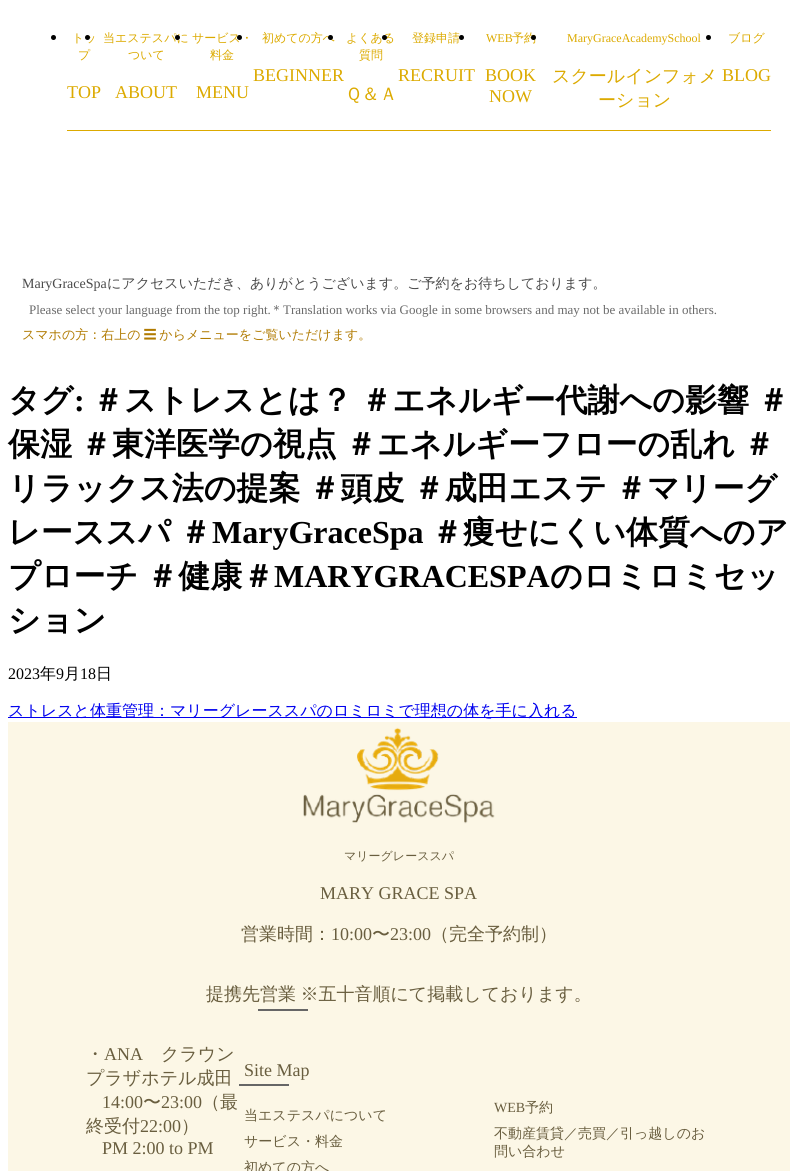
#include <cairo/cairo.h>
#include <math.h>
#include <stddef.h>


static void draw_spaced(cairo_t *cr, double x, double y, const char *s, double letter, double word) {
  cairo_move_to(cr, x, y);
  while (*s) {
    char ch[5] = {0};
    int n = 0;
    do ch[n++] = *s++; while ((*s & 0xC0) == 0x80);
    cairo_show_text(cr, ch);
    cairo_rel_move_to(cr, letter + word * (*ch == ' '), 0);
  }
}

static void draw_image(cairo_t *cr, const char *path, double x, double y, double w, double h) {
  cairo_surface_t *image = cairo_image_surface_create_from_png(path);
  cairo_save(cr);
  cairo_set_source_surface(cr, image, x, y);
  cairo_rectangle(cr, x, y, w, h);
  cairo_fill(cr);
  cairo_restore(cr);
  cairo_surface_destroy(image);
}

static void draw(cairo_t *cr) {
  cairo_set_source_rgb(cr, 1, 1, 1);
  cairo_paint(cr);
  cairo_set_source_rgb(cr, 220 / 255.0, 170 / 255.0, 0);
  cairo_rectangle(cr, 67, 130, 704, 1);
  cairo_fill(cr);
  cairo_set_source_rgb(cr, 0, 0, 0);
  cairo_arc(cr, 53.5, 37.5, 2.5, 0, 2 * M_PI);
  cairo_fill(cr);
  cairo_arc(cr, 708.5, 37.5, 2.5, 0, 2 * M_PI);
  cairo_fill(cr);
  cairo_set_source_rgb(cr, 0, 0, 238 / 255.0);
  cairo_rectangle(cr, 8, 717, 569, 1);
  cairo_fill(cr);
  cairo_set_source_rgb(cr, 252 / 255.0, 247 / 255.0, 230 / 255.0);
  cairo_rectangle(cr, 8, 722, 782, 449);
  cairo_fill(cr);
  draw_image(cr, "images/1.png", 303, 727, 192, 97);
  cairo_set_source_rgb(cr, 102 / 255.0, 102 / 255.0, 102 / 255.0);
  cairo_rectangle(cr, 258, 1009, 50, 2);
  cairo_fill(cr);
  cairo_rectangle(cr, 239, 1084, 50, 2);
  cairo_fill(cr);
  cairo_select_font_face(cr, "WenQuanYi Zen Hei Medium", CAIRO_FONT_SLANT_NORMAL, CAIRO_FONT_WEIGHT_NORMAL);
  cairo_set_font_size(cr, 12);
  cairo_set_source_rgb(cr, 220 / 255.0, 170 / 255.0, 0);
  cairo_move_to(cr, 72, 42);
  cairo_show_text(cr, "トッ");
  cairo_move_to(cr, 78, 59);
  cairo_show_text(cr, "プ");
  cairo_select_font_face(cr, "Liberation Serif", CAIRO_FONT_SLANT_NORMAL, CAIRO_FONT_WEIGHT_NORMAL);
  cairo_set_font_size(cr, 18);
  cairo_move_to(cr, 67, 98);
  cairo_show_text(cr, "TOP");
  cairo_set_source_rgb(cr, 0, 0, 0);
  cairo_new_path(cr);
  cairo_arc(cr, 87.5, 37.5, 2.5, 0, 2 * M_PI);
  cairo_fill(cr);
  cairo_select_font_face(cr, "WenQuanYi Zen Hei Medium", CAIRO_FONT_SLANT_NORMAL, CAIRO_FONT_WEIGHT_NORMAL);
  cairo_set_font_size(cr, 12);
  cairo_set_source_rgb(cr, 220 / 255.0, 170 / 255.0, 0);
  cairo_move_to(cr, 103, 42);
  cairo_show_text(cr, "当エステスパに");
  cairo_move_to(cr, 128, 59);
  cairo_show_text(cr, "ついて");
  cairo_select_font_face(cr, "Liberation Serif", CAIRO_FONT_SLANT_NORMAL, CAIRO_FONT_WEIGHT_NORMAL);
  cairo_set_font_size(cr, 18);
  cairo_move_to(cr, 115, 98);
  cairo_show_text(cr, "ABOUT");
  cairo_set_source_rgb(cr, 0, 0, 0);
  cairo_new_path(cr);
  cairo_arc(cr, 177.5, 37.5, 2.5, 0, 2 * M_PI);
  cairo_fill(cr);
  cairo_select_font_face(cr, "WenQuanYi Zen Hei Medium", CAIRO_FONT_SLANT_NORMAL, CAIRO_FONT_WEIGHT_NORMAL);
  cairo_set_font_size(cr, 12);
  cairo_set_source_rgb(cr, 220 / 255.0, 170 / 255.0, 0);
  cairo_move_to(cr, 192, 42);
  cairo_show_text(cr, "サービス・");
  cairo_move_to(cr, 210, 59);
  cairo_show_text(cr, "料金");
  cairo_select_font_face(cr, "Liberation Serif", CAIRO_FONT_SLANT_NORMAL, CAIRO_FONT_WEIGHT_NORMAL);
  cairo_set_font_size(cr, 18);
  cairo_move_to(cr, 196, 98);
  cairo_show_text(cr, "MENU");
  cairo_set_source_rgb(cr, 0, 0, 0);
  cairo_new_path(cr);
  cairo_arc(cr, 239.5, 37.5, 2.5, 0, 2 * M_PI);
  cairo_fill(cr);
  cairo_select_font_face(cr, "WenQuanYi Zen Hei Medium", CAIRO_FONT_SLANT_NORMAL, CAIRO_FONT_WEIGHT_NORMAL);
  cairo_set_font_size(cr, 12);
  cairo_set_source_rgb(cr, 220 / 255.0, 170 / 255.0, 0);
  cairo_move_to(cr, 262, 42);
  cairo_show_text(cr, "初めての方へ");
  cairo_select_font_face(cr, "Liberation Serif", CAIRO_FONT_SLANT_NORMAL, CAIRO_FONT_WEIGHT_NORMAL);
  cairo_set_font_size(cr, 18);
  cairo_move_to(cr, 253, 81);
  cairo_show_text(cr, "BEGINNER");
  cairo_set_source_rgb(cr, 0, 0, 0);
  cairo_new_path(cr);
  cairo_arc(cr, 330.5, 37.5, 2.5, 0, 2 * M_PI);
  cairo_fill(cr);
  cairo_select_font_face(cr, "WenQuanYi Zen Hei Medium", CAIRO_FONT_SLANT_NORMAL, CAIRO_FONT_WEIGHT_NORMAL);
  cairo_set_font_size(cr, 12);
  cairo_set_source_rgb(cr, 220 / 255.0, 170 / 255.0, 0);
  cairo_move_to(cr, 346, 42);
  cairo_show_text(cr, "よくある");
  cairo_move_to(cr, 359, 59);
  cairo_show_text(cr, "質問");
  cairo_set_font_size(cr, 18);
  cairo_move_to(cr, 345, 100);
  cairo_show_text(cr, "Ｑ＆Ａ");
  cairo_set_source_rgb(cr, 0, 0, 0);
  cairo_new_path(cr);
  cairo_arc(cr, 384.5, 37.5, 2.5, 0, 2 * M_PI);
  cairo_fill(cr);
  cairo_set_font_size(cr, 12);
  cairo_set_source_rgb(cr, 220 / 255.0, 170 / 255.0, 0);
  cairo_move_to(cr, 412, 42);
  cairo_show_text(cr, "登録申請");
  cairo_select_font_face(cr, "Liberation Serif", CAIRO_FONT_SLANT_NORMAL, CAIRO_FONT_WEIGHT_NORMAL);
  cairo_set_font_size(cr, 18);
  cairo_move_to(cr, 398, 81);
  cairo_show_text(cr, "RECRUIT");
  cairo_set_source_rgb(cr, 0, 0, 0);
  cairo_new_path(cr);
  cairo_arc(cr, 461.5, 37.5, 2.5, 0, 2 * M_PI);
  cairo_fill(cr);
  cairo_set_font_size(cr, 12);
  cairo_set_source_rgb(cr, 220 / 255.0, 170 / 255.0, 0);
  cairo_move_to(cr, 486, 42);
  cairo_show_text(cr, "WEB");
  cairo_select_font_face(cr, "WenQuanYi Zen Hei Medium", CAIRO_FONT_SLANT_NORMAL, CAIRO_FONT_WEIGHT_NORMAL);
  cairo_move_to(cr, 512, 42);
  cairo_show_text(cr, "予約");
  cairo_select_font_face(cr, "Liberation Serif", CAIRO_FONT_SLANT_NORMAL, CAIRO_FONT_WEIGHT_NORMAL);
  cairo_set_font_size(cr, 18);
  cairo_move_to(cr, 485, 81);
  cairo_show_text(cr, "BOOK");
  cairo_move_to(cr, 489, 102);
  cairo_show_text(cr, "NOW");
  cairo_set_source_rgb(cr, 0, 0, 0);
  cairo_new_path(cr);
  cairo_arc(cr, 533.5, 37.5, 2.5, 0, 2 * M_PI);
  cairo_fill(cr);
  cairo_set_font_size(cr, 12);
  cairo_set_source_rgb(cr, 220 / 255.0, 170 / 255.0, 0);
  cairo_move_to(cr, 567, 42);
  cairo_show_text(cr, "MaryGraceAcademySchool");
  cairo_select_font_face(cr, "WenQuanYi Zen Hei Medium", CAIRO_FONT_SLANT_NORMAL, CAIRO_FONT_WEIGHT_NORMAL);
  cairo_set_font_size(cr, 18);
  cairo_move_to(cr, 552, 82);
  cairo_show_text(cr, "スクールインフォメ");
  cairo_move_to(cr, 598, 106);
  cairo_show_text(cr, "ーション");
  cairo_set_font_size(cr, 12);
  cairo_move_to(cr, 728, 42);
  cairo_show_text(cr, "ブログ");
  cairo_select_font_face(cr, "Liberation Serif", CAIRO_FONT_SLANT_NORMAL, CAIRO_FONT_WEIGHT_NORMAL);
  cairo_set_font_size(cr, 18);
  cairo_move_to(cr, 722, 81);
  cairo_show_text(cr, "BLOG");
  cairo_set_font_size(cr, 14);
  cairo_set_source_rgb(cr, 74 / 255.0, 74 / 255.0, 74 / 255.0);
  cairo_move_to(cr, 22, 288);
  cairo_show_text(cr, "MaryGraceSpa");
  cairo_select_font_face(cr, "WenQuanYi Zen Hei Medium", CAIRO_FONT_SLANT_NORMAL, CAIRO_FONT_WEIGHT_NORMAL);
  cairo_move_to(cr, 107, 288);
  cairo_show_text(cr, "にアクセスいただき、ありがとうございます。ご予約をお待ちしております。");
  cairo_select_font_face(cr, "Liberation Serif", CAIRO_FONT_SLANT_NORMAL, CAIRO_FONT_WEIGHT_NORMAL);
  cairo_set_font_size(cr, 13);
  cairo_set_source_rgb(cr, 106 / 255.0, 106 / 255.0, 106 / 255.0);
  cairo_move_to(cr, 29, 314);
  cairo_show_text(cr, "Please select your language from the top right.");
  cairo_select_font_face(cr, "WenQuanYi Zen Hei Medium", CAIRO_FONT_SLANT_NORMAL, CAIRO_FONT_WEIGHT_NORMAL);
  cairo_move_to(cr, 270, 314);
  cairo_show_text(cr, "＊");
  cairo_select_font_face(cr, "Liberation Serif", CAIRO_FONT_SLANT_NORMAL, CAIRO_FONT_WEIGHT_NORMAL);
  cairo_move_to(cr, 283, 314);
  cairo_show_text(cr, "Translation works via Google in some browsers and may not be available in others.");
  cairo_select_font_face(cr, "WenQuanYi Zen Hei Medium", CAIRO_FONT_SLANT_NORMAL, CAIRO_FONT_WEIGHT_NORMAL);
  cairo_set_source_rgb(cr, 176 / 255.0, 122 / 255.0, 0);
  draw_spaced(cr, 22, 339, "スマホの方：右上の ☰ からメニューをご覧いただけます。", 0, -1);
  cairo_select_font_face(cr, "WenQuanYi Zen Hei", CAIRO_FONT_SLANT_NORMAL, CAIRO_FONT_WEIGHT_BOLD);
  cairo_set_font_size(cr, 32);
  cairo_set_source_rgb(cr, 0, 0, 0);
  cairo_move_to(cr, 8, 411);
  cairo_show_text(cr, "タグ");
  cairo_select_font_face(cr, "Liberation Serif", CAIRO_FONT_SLANT_NORMAL, CAIRO_FONT_WEIGHT_BOLD);
  cairo_move_to(cr, 74, 411);
  cairo_show_text(cr, ":");
  cairo_select_font_face(cr, "WenQuanYi Zen Hei", CAIRO_FONT_SLANT_NORMAL, CAIRO_FONT_WEIGHT_BOLD);
  draw_spaced(cr, 92, 411, "＃ストレスとは？ ＃エネルギー代謝への影響 ＃", 0, -1.5);
  draw_spaced(cr, 8, 455, "保湿 ＃東洋医学の視点 ＃エネルギーフローの乱れ ＃", 0, -1.5);
  draw_spaced(cr, 8, 499, "リラックス法の提案 ＃頭皮 ＃成田エステ ＃マリーグ", 0, -1.5);
  draw_spaced(cr, 8, 543, "レーススパ ＃", 0, -1);
  cairo_select_font_face(cr, "Liberation Serif", CAIRO_FONT_SLANT_NORMAL, CAIRO_FONT_WEIGHT_BOLD);
  cairo_move_to(cr, 212, 543);
  cairo_show_text(cr, "MaryGraceSpa");
  cairo_select_font_face(cr, "WenQuanYi Zen Hei", CAIRO_FONT_SLANT_NORMAL, CAIRO_FONT_WEIGHT_BOLD);
  cairo_move_to(cr, 431, 543);
  cairo_show_text(cr, "＃痩せにくい体質へのア");
  draw_spaced(cr, 8, 587, "プローチ ＃健康＃", 0, -1.5);
  cairo_select_font_face(cr, "Liberation Serif", CAIRO_FONT_SLANT_NORMAL, CAIRO_FONT_WEIGHT_BOLD);
  cairo_move_to(cr, 274, 587);
  cairo_show_text(cr, "MARYGRACESPA");
  cairo_select_font_face(cr, "WenQuanYi Zen Hei", CAIRO_FONT_SLANT_NORMAL, CAIRO_FONT_WEIGHT_BOLD);
  cairo_move_to(cr, 550, 587);
  cairo_show_text(cr, "のロミロミセッ");
  cairo_move_to(cr, 8, 631);
  cairo_show_text(cr, "ション");
  cairo_select_font_face(cr, "Liberation Serif", CAIRO_FONT_SLANT_NORMAL, CAIRO_FONT_WEIGHT_NORMAL);
  cairo_set_font_size(cr, 16);
  cairo_move_to(cr, 8, 679);
  cairo_show_text(cr, "2023");
  cairo_select_font_face(cr, "WenQuanYi Zen Hei Medium", CAIRO_FONT_SLANT_NORMAL, CAIRO_FONT_WEIGHT_NORMAL);
  cairo_move_to(cr, 40, 679);
  cairo_show_text(cr, "年");
  cairo_select_font_face(cr, "Liberation Serif", CAIRO_FONT_SLANT_NORMAL, CAIRO_FONT_WEIGHT_NORMAL);
  cairo_move_to(cr, 56, 679);
  cairo_show_text(cr, "9");
  cairo_select_font_face(cr, "WenQuanYi Zen Hei Medium", CAIRO_FONT_SLANT_NORMAL, CAIRO_FONT_WEIGHT_NORMAL);
  cairo_move_to(cr, 64, 679);
  cairo_show_text(cr, "月");
  cairo_select_font_face(cr, "Liberation Serif", CAIRO_FONT_SLANT_NORMAL, CAIRO_FONT_WEIGHT_NORMAL);
  cairo_move_to(cr, 80, 679);
  cairo_show_text(cr, "18");
  cairo_select_font_face(cr, "WenQuanYi Zen Hei Medium", CAIRO_FONT_SLANT_NORMAL, CAIRO_FONT_WEIGHT_NORMAL);
  cairo_move_to(cr, 96, 679);
  cairo_show_text(cr, "日");
  cairo_set_source_rgb(cr, 0, 0, 238 / 255.0);
  cairo_move_to(cr, 8, 716);
  cairo_show_text(cr, "ストレスと体重管理：マリーグレーススパのロミロミで理想の体を手に入れる");
  cairo_set_font_size(cr, 12);
  cairo_set_source_rgb(cr, 105 / 255.0, 94 / 255.0, 63 / 255.0);
  cairo_move_to(cr, 344, 860);
  cairo_show_text(cr, "マリーグレーススパ");
  cairo_select_font_face(cr, "Liberation Serif", CAIRO_FONT_SLANT_NORMAL, CAIRO_FONT_WEIGHT_NORMAL);
  cairo_set_font_size(cr, 18);
  cairo_move_to(cr, 320, 899);
  cairo_show_text(cr, "MARY GRACE SPA");
  cairo_select_font_face(cr, "WenQuanYi Zen Hei Medium", CAIRO_FONT_SLANT_NORMAL, CAIRO_FONT_WEIGHT_NORMAL);
  cairo_move_to(cr, 241, 940);
  cairo_show_text(cr, "営業時間：");
  cairo_select_font_face(cr, "Liberation Serif", CAIRO_FONT_SLANT_NORMAL, CAIRO_FONT_WEIGHT_NORMAL);
  cairo_move_to(cr, 331, 940);
  cairo_show_text(cr, "10:00");
  cairo_select_font_face(cr, "WenQuanYi Zen Hei Medium", CAIRO_FONT_SLANT_NORMAL, CAIRO_FONT_WEIGHT_NORMAL);
  cairo_move_to(cr, 372, 940);
  cairo_show_text(cr, "〜");
  cairo_select_font_face(cr, "Liberation Serif", CAIRO_FONT_SLANT_NORMAL, CAIRO_FONT_WEIGHT_NORMAL);
  cairo_move_to(cr, 390, 940);
  cairo_show_text(cr, "23:00");
  cairo_select_font_face(cr, "WenQuanYi Zen Hei Medium", CAIRO_FONT_SLANT_NORMAL, CAIRO_FONT_WEIGHT_NORMAL);
  cairo_move_to(cr, 431, 940);
  cairo_show_text(cr, "（完全予約制）");
  draw_spaced(cr, 206, 1000, "提携先営業 ※五十音順にて掲載しております。", 0, -1);
  cairo_move_to(cr, 86, 1060);
  cairo_show_text(cr, "・");
  cairo_select_font_face(cr, "Liberation Serif", CAIRO_FONT_SLANT_NORMAL, CAIRO_FONT_WEIGHT_NORMAL);
  cairo_move_to(cr, 104, 1060);
  cairo_show_text(cr, "ANA");
  cairo_select_font_face(cr, "WenQuanYi Zen Hei Medium", CAIRO_FONT_SLANT_NORMAL, CAIRO_FONT_WEIGHT_NORMAL);
  cairo_move_to(cr, 161, 1060);
  cairo_show_text(cr, "クラウン");
  cairo_move_to(cr, 86, 1084);
  cairo_show_text(cr, "プラザホテル成田");
  cairo_select_font_face(cr, "Liberation Serif", CAIRO_FONT_SLANT_NORMAL, CAIRO_FONT_WEIGHT_NORMAL);
  cairo_move_to(cr, 102, 1108);
  cairo_show_text(cr, "14:00");
  cairo_select_font_face(cr, "WenQuanYi Zen Hei Medium", CAIRO_FONT_SLANT_NORMAL, CAIRO_FONT_WEIGHT_NORMAL);
  cairo_move_to(cr, 143, 1108);
  cairo_show_text(cr, "〜");
  cairo_select_font_face(cr, "Liberation Serif", CAIRO_FONT_SLANT_NORMAL, CAIRO_FONT_WEIGHT_NORMAL);
  cairo_move_to(cr, 161, 1108);
  cairo_show_text(cr, "23:00");
  cairo_select_font_face(cr, "WenQuanYi Zen Hei Medium", CAIRO_FONT_SLANT_NORMAL, CAIRO_FONT_WEIGHT_NORMAL);
  cairo_move_to(cr, 202, 1108);
  cairo_show_text(cr, "（最");
  cairo_move_to(cr, 86, 1132);
  cairo_show_text(cr, "終受付");
  cairo_select_font_face(cr, "Liberation Serif", CAIRO_FONT_SLANT_NORMAL, CAIRO_FONT_WEIGHT_NORMAL);
  cairo_move_to(cr, 140, 1132);
  cairo_show_text(cr, "22:00");
  cairo_select_font_face(cr, "WenQuanYi Zen Hei Medium", CAIRO_FONT_SLANT_NORMAL, CAIRO_FONT_WEIGHT_NORMAL);
  cairo_move_to(cr, 181, 1132);
  cairo_show_text(cr, "）");
  cairo_select_font_face(cr, "Liberation Serif", CAIRO_FONT_SLANT_NORMAL, CAIRO_FONT_WEIGHT_NORMAL);
  cairo_move_to(cr, 102, 1154);
  cairo_show_text(cr, "PM 2:00 to PM");
  cairo_move_to(cr, 244, 1076);
  cairo_show_text(cr, "Site Map");
  cairo_select_font_face(cr, "WenQuanYi Zen Hei Medium", CAIRO_FONT_SLANT_NORMAL, CAIRO_FONT_WEIGHT_NORMAL);
  cairo_set_font_size(cr, 14);
  cairo_move_to(cr, 244, 1120);
  cairo_show_text(cr, "当エステスパについて");
  cairo_move_to(cr, 244, 1146);
  cairo_show_text(cr, "サービス・料金");
  cairo_move_to(cr, 244, 1172);
  cairo_show_text(cr, "初めての方へ");
  cairo_select_font_face(cr, "Liberation Serif", CAIRO_FONT_SLANT_NORMAL, CAIRO_FONT_WEIGHT_NORMAL);
  cairo_move_to(cr, 494, 1112);
  cairo_show_text(cr, "WEB");
  cairo_select_font_face(cr, "WenQuanYi Zen Hei Medium", CAIRO_FONT_SLANT_NORMAL, CAIRO_FONT_WEIGHT_NORMAL);
  cairo_move_to(cr, 525, 1112);
  cairo_show_text(cr, "予約");
  cairo_move_to(cr, 494, 1138);
  cairo_show_text(cr, "不動産賃貸／売買／引っ越しのお");
  cairo_move_to(cr, 494, 1156);
  cairo_show_text(cr, "問い合わせ");
}

int main(void) {
  cairo_surface_t *surface = cairo_image_surface_create(CAIRO_FORMAT_RGB24, 798, 1171);
  cairo_t *cr = cairo_create(surface);
  cairo_font_options_t *options = cairo_font_options_create();
  cairo_font_options_set_hint_metrics(options, CAIRO_HINT_METRICS_OFF);
  cairo_font_options_set_hint_style(options, CAIRO_HINT_STYLE_NONE);
  cairo_set_font_options(cr, options);
  cairo_set_miter_limit(cr, 4);
  draw(cr);
  cairo_surface_write_to_png(surface, "out.png");
  cairo_font_options_destroy(options);
  cairo_destroy(cr);
  cairo_surface_destroy(surface);
  return 0;
}
